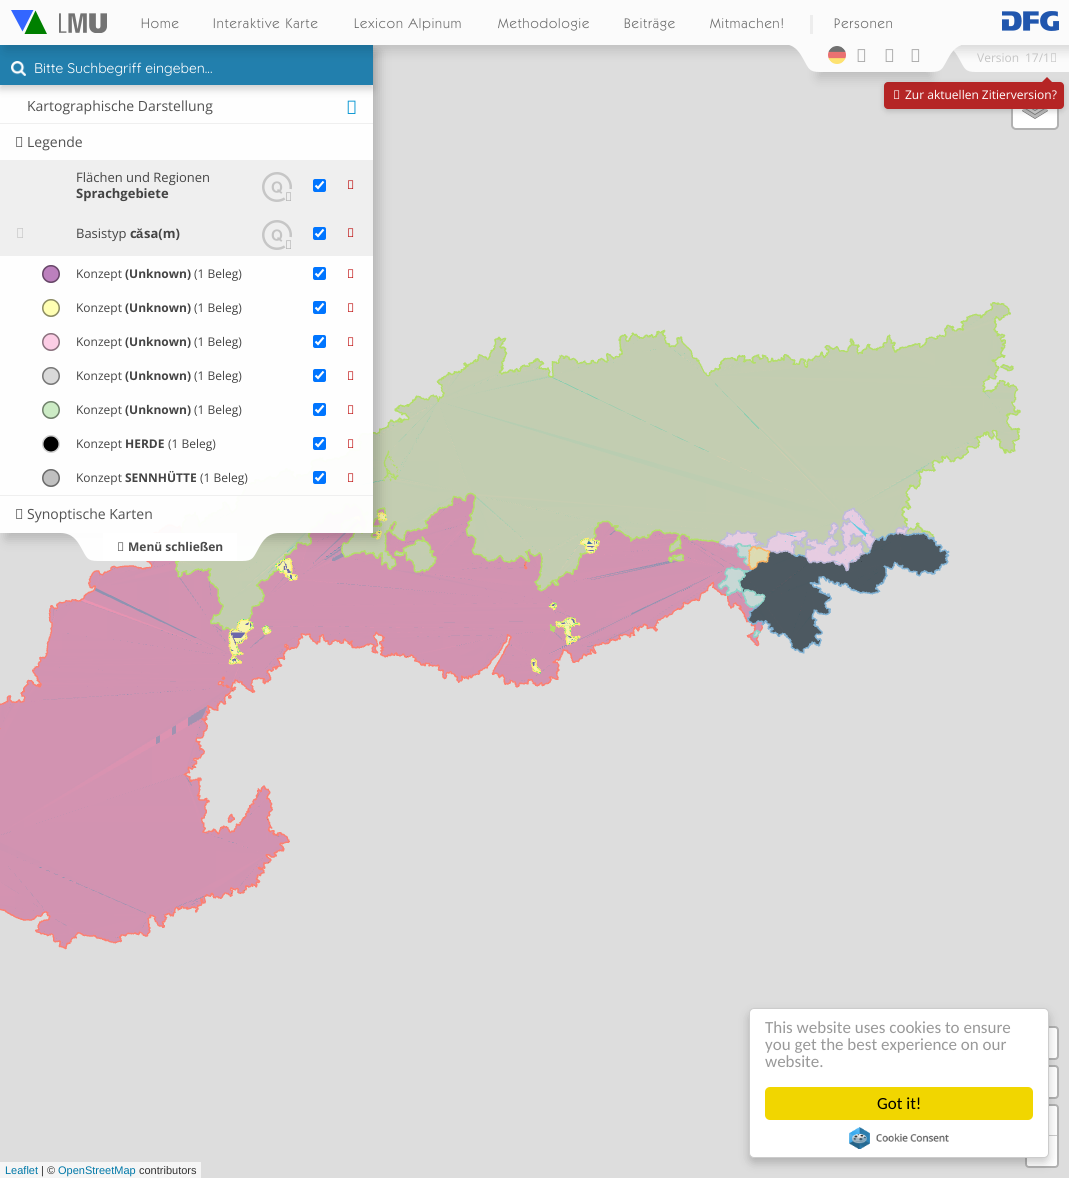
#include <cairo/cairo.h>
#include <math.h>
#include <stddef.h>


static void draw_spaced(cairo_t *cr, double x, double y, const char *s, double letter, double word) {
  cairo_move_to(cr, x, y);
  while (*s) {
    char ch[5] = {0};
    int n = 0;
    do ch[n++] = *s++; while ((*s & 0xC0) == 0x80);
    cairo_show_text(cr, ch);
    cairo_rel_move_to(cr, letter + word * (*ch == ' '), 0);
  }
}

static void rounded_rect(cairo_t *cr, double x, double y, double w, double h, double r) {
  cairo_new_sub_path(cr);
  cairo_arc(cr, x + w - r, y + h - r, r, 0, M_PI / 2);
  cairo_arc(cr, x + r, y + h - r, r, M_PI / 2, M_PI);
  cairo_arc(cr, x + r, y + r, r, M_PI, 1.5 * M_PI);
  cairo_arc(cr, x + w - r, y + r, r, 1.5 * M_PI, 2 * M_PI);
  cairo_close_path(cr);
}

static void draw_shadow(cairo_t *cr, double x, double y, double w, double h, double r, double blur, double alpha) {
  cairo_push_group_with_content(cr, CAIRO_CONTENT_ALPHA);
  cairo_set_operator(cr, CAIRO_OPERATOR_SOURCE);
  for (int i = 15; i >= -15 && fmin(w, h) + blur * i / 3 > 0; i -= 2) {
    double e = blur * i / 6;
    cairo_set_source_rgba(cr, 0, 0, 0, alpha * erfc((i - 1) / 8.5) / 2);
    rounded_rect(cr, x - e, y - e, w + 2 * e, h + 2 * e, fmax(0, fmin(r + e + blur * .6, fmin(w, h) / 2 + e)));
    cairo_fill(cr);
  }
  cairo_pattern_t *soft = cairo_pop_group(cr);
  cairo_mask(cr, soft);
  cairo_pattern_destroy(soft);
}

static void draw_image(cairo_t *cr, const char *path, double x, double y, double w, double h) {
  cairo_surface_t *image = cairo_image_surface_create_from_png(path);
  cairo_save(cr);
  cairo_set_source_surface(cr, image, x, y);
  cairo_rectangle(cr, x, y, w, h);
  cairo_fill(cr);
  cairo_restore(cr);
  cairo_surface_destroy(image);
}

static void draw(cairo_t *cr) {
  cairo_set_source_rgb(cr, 221 / 255.0, 221 / 255.0, 221 / 255.0);
  cairo_paint(cr);
  draw_image(cr, "images/20.png", 0, 302, 1021, 648);
  cairo_save(cr);
  cairo_set_fill_rule(cr, CAIRO_FILL_RULE_EVEN_ODD);
  cairo_new_path(cr);
  cairo_move_to(cr, 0, 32);
  cairo_line_to(cr, 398, 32);
  cairo_line_to(cr, 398, 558);
  cairo_line_to(cr, 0, 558);
  cairo_close_path(cr);
  cairo_move_to(cr, 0, 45);
  cairo_line_to(cr, 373, 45);
  cairo_line_to(cr, 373, 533);
  cairo_line_to(cr, 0, 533);
  cairo_close_path(cr);
  cairo_clip(cr);
  cairo_set_source_rgb(cr, 0, 0, 0);
  draw_shadow(cr, 6, 51, 373, 488, 0, 6, 0.18);
  cairo_restore(cr);
  cairo_set_source_rgba(cr, 1, 1, 1, 0.96);
  cairo_rectangle(cr, 0, 85, 373, 448);
  cairo_fill(cr);
  cairo_set_source_rgb(cr, 0, 0, 0);
  draw_shadow(cr, 0, 49, 373, 40, 0, 4, 0.19);
  cairo_set_source_rgb(cr, 34 / 255.0, 127 / 255.0, 173 / 255.0);
  cairo_rectangle(cr, 0, 45, 373, 40);
  cairo_fill(cr);
  draw_image(cr, "images/1.png", 11, 61, 15, 15);
  cairo_set_source_rgb(cr, 239 / 255.0, 239 / 255.0, 239 / 255.0);
  cairo_rectangle(cr, 0, 123, 373, 1);
  cairo_fill(cr);
  draw_image(cr, "images/2.png", 347, 100, 9, 14);
  draw_image(cr, "images/3.png", 16, 137, 7, 10);
  cairo_rectangle(cr, 0, 495, 373, 1);
  cairo_fill(cr);
  cairo_rectangle(cr, 0, 160, 373, 96);
  cairo_fill(cr);
  draw_image(cr, "images/4.png", 262, 172, 30, 30);
  draw_image(cr, "images/5.png", 286, 192, 5, 9);
  cairo_set_source_rgb(cr, 0, 117 / 255.0, 1);
  rounded_rect(cr, 313, 179, 13, 13, 2);
  cairo_fill(cr);
  cairo_new_path(cr);
  cairo_move_to(cr, 315.5, 185.5);
  cairo_line_to(cr, 318, 188);
  cairo_line_to(cr, 323.5, 181.5);
  cairo_set_source_rgb(cr, 1, 1, 1);
  cairo_set_line_width(cr, 2.1);
  cairo_stroke(cr);
  draw_image(cr, "images/6.png", 348, 180, 6, 9);
  draw_image(cr, "images/7.png", 17, 228, 6, 10);
  draw_image(cr, "images/4.png", 262, 220, 30, 30);
  draw_image(cr, "images/5.png", 286, 240, 5, 9);
  cairo_set_source_rgb(cr, 0, 117 / 255.0, 1);
  rounded_rect(cr, 313, 227, 13, 13, 2);
  cairo_fill(cr);
  cairo_new_path(cr);
  cairo_move_to(cr, 315.5, 233.5);
  cairo_line_to(cr, 318, 236);
  cairo_line_to(cr, 323.5, 229.5);
  cairo_set_source_rgb(cr, 1, 1, 1);
  cairo_stroke(cr);
  draw_image(cr, "images/6.png", 348, 228, 6, 9);
  draw_image(cr, "images/8.png", 42, 265, 18, 18);
  cairo_set_source_rgb(cr, 0, 117 / 255.0, 1);
  rounded_rect(cr, 313, 267, 13, 13, 2);
  cairo_fill(cr);
  cairo_new_path(cr);
  cairo_move_to(cr, 315.5, 273.5);
  cairo_line_to(cr, 318, 276);
  cairo_line_to(cr, 323.5, 269.5);
  cairo_set_source_rgb(cr, 1, 1, 1);
  cairo_stroke(cr);
  draw_image(cr, "images/9.png", 348, 269, 6, 9);
  draw_image(cr, "images/10.png", 42, 299, 18, 18);
  cairo_set_source_rgb(cr, 0, 117 / 255.0, 1);
  rounded_rect(cr, 313, 301, 13, 13, 2);
  cairo_fill(cr);
  cairo_new_path(cr);
  cairo_move_to(cr, 315.5, 307.5);
  cairo_line_to(cr, 318, 310);
  cairo_line_to(cr, 323.5, 303.5);
  cairo_set_source_rgb(cr, 1, 1, 1);
  cairo_stroke(cr);
  draw_image(cr, "images/9.png", 348, 303, 6, 9);
  draw_image(cr, "images/11.png", 42, 333, 18, 18);
  cairo_set_source_rgb(cr, 0, 117 / 255.0, 1);
  rounded_rect(cr, 313, 335, 13, 13, 2);
  cairo_fill(cr);
  cairo_new_path(cr);
  cairo_move_to(cr, 315.5, 341.5);
  cairo_line_to(cr, 318, 344);
  cairo_line_to(cr, 323.5, 337.5);
  cairo_set_source_rgb(cr, 1, 1, 1);
  cairo_stroke(cr);
  draw_image(cr, "images/9.png", 348, 337, 6, 9);
  draw_image(cr, "images/12.png", 42, 367, 18, 18);
  cairo_set_source_rgb(cr, 0, 117 / 255.0, 1);
  rounded_rect(cr, 313, 369, 13, 13, 2);
  cairo_fill(cr);
  cairo_new_path(cr);
  cairo_move_to(cr, 315.5, 375.5);
  cairo_line_to(cr, 318, 378);
  cairo_line_to(cr, 323.5, 371.5);
  cairo_set_source_rgb(cr, 1, 1, 1);
  cairo_stroke(cr);
  draw_image(cr, "images/9.png", 348, 371, 6, 9);
  draw_image(cr, "images/13.png", 42, 401, 18, 18);
  cairo_set_source_rgb(cr, 0, 117 / 255.0, 1);
  rounded_rect(cr, 313, 403, 13, 13, 2);
  cairo_fill(cr);
  cairo_new_path(cr);
  cairo_move_to(cr, 315.5, 409.5);
  cairo_line_to(cr, 318, 412);
  cairo_line_to(cr, 323.5, 405.5);
  cairo_set_source_rgb(cr, 1, 1, 1);
  cairo_stroke(cr);
  draw_image(cr, "images/9.png", 348, 405, 6, 9);
  draw_image(cr, "images/14.png", 42, 435, 18, 18);
  cairo_set_source_rgb(cr, 0, 117 / 255.0, 1);
  rounded_rect(cr, 313, 437, 13, 13, 2);
  cairo_fill(cr);
  cairo_new_path(cr);
  cairo_move_to(cr, 315.5, 443.5);
  cairo_line_to(cr, 318, 446);
  cairo_line_to(cr, 323.5, 439.5);
  cairo_set_source_rgb(cr, 1, 1, 1);
  cairo_stroke(cr);
  draw_image(cr, "images/9.png", 348, 439, 6, 9);
  draw_image(cr, "images/15.png", 42, 469, 18, 18);
  cairo_set_source_rgb(cr, 0, 117 / 255.0, 1);
  rounded_rect(cr, 313, 471, 13, 13, 2);
  cairo_fill(cr);
  cairo_new_path(cr);
  cairo_move_to(cr, 315.5, 477.5);
  cairo_line_to(cr, 318, 480);
  cairo_line_to(cr, 323.5, 473.5);
  cairo_set_source_rgb(cr, 1, 1, 1);
  cairo_stroke(cr);
  draw_image(cr, "images/16.png", 348, 473, 6, 9);
  draw_image(cr, "images/3.png", 16, 509, 7, 10);
  draw_image(cr, "images/17.png", 61, 533, 42, 28);
  cairo_rectangle(cr, 103, 533, 134, 28);
  cairo_fill(cr);
  draw_image(cr, "images/18.png", 118, 542, 6, 9);
  draw_image(cr, "images/19.png", 237, 533, 42, 28);
  rounded_rect(cr, 1012, 83, 46, 46, 4);
  cairo_fill_preserve(cr);
  cairo_set_source_rgb(cr, 177 / 255.0, 177 / 255.0, 177 / 255.0);
  cairo_set_line_width(cr, 2);
  cairo_stroke(cr);
  draw_image(cr, "images/21.png", 1022, 109, 26, 10);
  cairo_set_source_rgb(cr, 1, 1, 1);
  rounded_rect(cr, 1027, 1028, 30, 30, 2);
  cairo_fill(cr);
  rounded_rect(cr, 1026, 1027, 32, 32, 3);
  cairo_set_source_rgba(cr, 0, 0, 0, 0.2);
  cairo_stroke(cr);
  cairo_set_source_rgb(cr, 1, 1, 1);
  rounded_rect(cr, 1027, 1067, 30, 30, 2);
  cairo_fill(cr);
  rounded_rect(cr, 1026, 1066, 32, 32, 3);
  cairo_set_source_rgba(cr, 0, 0, 0, 0.2);
  cairo_stroke(cr);
  rounded_rect(cr, 1026, 1105, 32, 62, 3);
  cairo_set_source_rgb(cr, 177 / 255.0, 177 / 255.0, 177 / 255.0);
  cairo_stroke(cr);
  cairo_set_source_rgb(cr, 1, 1, 1);
  cairo_new_path(cr);
  cairo_move_to(cr, 1029, 1106);
  cairo_line_to(cr, 1055, 1106);
  cairo_curve_to(cr, 1056, 1106, 1057, 1107, 1057, 1108);
  cairo_line_to(cr, 1057, 1136);
  cairo_line_to(cr, 1027, 1136);
  cairo_line_to(cr, 1027, 1108);
  cairo_curve_to(cr, 1027, 1107, 1028, 1106, 1029, 1106);
  cairo_close_path(cr);
  cairo_fill(cr);
  cairo_set_source_rgb(cr, 204 / 255.0, 204 / 255.0, 204 / 255.0);
  cairo_rectangle(cr, 1049, 1135, 8, 1);
  cairo_fill(cr);
  cairo_set_source_rgb(cr, 1, 1, 1);
  cairo_new_path(cr);
  cairo_move_to(cr, 1027, 1136);
  cairo_line_to(cr, 1057, 1136);
  cairo_line_to(cr, 1057, 1164);
  cairo_curve_to(cr, 1057, 1165, 1056, 1166, 1055, 1166);
  cairo_line_to(cr, 1029, 1166);
  cairo_curve_to(cr, 1028, 1166, 1027, 1165, 1027, 1164);
  cairo_close_path(cr);
  cairo_fill(cr);
  cairo_set_source_rgb(cr, 245 / 255.0, 245 / 255.0, 245 / 255.0);
  cairo_rectangle(cr, 0, 1162, 201, 16);
  cairo_fill(cr);
  draw_image(cr, "images/29.png", 953, 45, 24, 27);
  cairo_set_source_rgb(cr, 251 / 255.0, 251 / 255.0, 251 / 255.0);
  cairo_rectangle(cr, 977, 45, 92, 27);
  cairo_fill(cr);
  draw_image(cr, "images/30.png", 1051, 53, 5, 9);
  cairo_set_source_rgb(cr, 0, 0, 0);
  draw_shadow(cr, 5, 5, 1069, 45, 0, 6.5, 0.15);
  cairo_set_source_rgb(cr, 251 / 255.0, 251 / 255.0, 251 / 255.0);
  cairo_rectangle(cr, 0, 0, 1069, 45);
  cairo_fill(cr);
  cairo_set_source_rgb(cr, 0, 128 / 255.0, 0);
  cairo_set_fill_rule(cr, CAIRO_FILL_RULE_EVEN_ODD);
  cairo_new_path(cr);
  cairo_move_to(cr, 24.5, 34);
  cairo_line_to(cr, 35.5, 10.5);
  cairo_line_to(cr, 47, 34);
  cairo_close_path(cr);
  cairo_fill(cr);
  cairo_set_source_rgb(cr, 51 / 255.0, 102 / 255.0, 1);
  cairo_new_path(cr);
  cairo_move_to(cr, 33.5, 10);
  cairo_line_to(cr, 22.5, 31.5);
  cairo_line_to(cr, 11, 10);
  cairo_close_path(cr);
  cairo_fill(cr);
  draw_image(cr, "images/22.png", 59, 13, 48, 20);
  cairo_set_source_rgb(cr, 237 / 255.0, 237 / 255.0, 237 / 255.0);
  cairo_rectangle(cr, 810, 15, 3, 19);
  cairo_fill(cr);
  draw_image(cr, "images/23.png", 1002, 11, 57, 20);
  cairo_set_source_rgb(cr, 100 / 255.0, 100 / 255.0, 100 / 255.0);
  draw_shadow(cr, 884, 84, 180, 27, 4, 3, 0.3);
  cairo_set_source_rgb(cr, 181 / 255.0, 37 / 255.0, 37 / 255.0);
  rounded_rect(cr, 884, 82, 180, 27, 4);
  cairo_fill(cr);
  cairo_set_fill_rule(cr, CAIRO_FILL_RULE_WINDING);
  cairo_new_path(cr);
  cairo_move_to(cr, 1052, 82);
  cairo_line_to(cr, 1042, 82);
  cairo_line_to(cr, 1047, 77);
  cairo_close_path(cr);
  cairo_fill(cr);
  draw_image(cr, "images/24.png", 894, 90, 6, 9);
  cairo_save(cr);
  cairo_rectangle(cr, 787, 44, 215, 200);
  cairo_clip(cr);
  cairo_set_source_rgb(cr, 0, 0, 0);
  draw_shadow(cr, 818, 40, 113, 38, 0, 6, 0.15);
  cairo_restore(cr);
  cairo_set_source_rgb(cr, 251 / 255.0, 251 / 255.0, 251 / 255.0);
  cairo_rectangle(cr, 823, 44, 103, 28);
  cairo_fill(cr);
  draw_image(cr, "images/25.png", 828, 46, 18, 18);
  draw_image(cr, "images/26.png", 857, 49, 9, 13);
  draw_image(cr, "images/26.png", 885, 49, 9, 13);
  draw_image(cr, "images/26.png", 911, 49, 9, 13);
  draw_image(cr, "images/27.png", 789, 44, 34, 28);
  draw_image(cr, "images/28.png", 926, 44, 35, 28);
  cairo_set_source_rgb(cr, 0, 0, 0);
  draw_shadow(cr, 749, 1013, 300, 150, 5, 5, 0.2);
  cairo_set_source_rgb(cr, 1, 1, 1);
  rounded_rect(cr, 749.5, 1008.5, 299, 149, 4.5);
  cairo_fill_preserve(cr);
  cairo_set_source_rgb(cr, 204 / 255.0, 204 / 255.0, 204 / 255.0);
  cairo_set_line_width(cr, 1);
  cairo_stroke(cr);
  cairo_set_source_rgb(cr, 241 / 255.0, 214 / 255.0, 0);
  rounded_rect(cr, 765, 1087, 268, 33, 5);
  cairo_fill(cr);
  draw_image(cr, "images/31.png", 849, 1127, 100, 22);
  cairo_select_font_face(cr, "Quicksand Light", CAIRO_FONT_SLANT_NORMAL, CAIRO_FONT_WEIGHT_NORMAL);
  cairo_set_font_size(cr, 14);
  cairo_set_source_rgb(cr, 1, 1, 1);
  cairo_move_to(cr, 34, 73);
  cairo_show_text(cr, "Bitte Suchbegriff eingeben...");
  cairo_select_font_face(cr, "Open Sans", CAIRO_FONT_SLANT_NORMAL, CAIRO_FONT_WEIGHT_NORMAL);
  cairo_set_source_rgb(cr, 81 / 255.0, 81 / 255.0, 81 / 255.0);
  cairo_move_to(cr, 27, 111);
  cairo_show_text(cr, "Kartographische Darstellung");
  cairo_move_to(cr, 27, 147);
  cairo_show_text(cr, "Legende");
  cairo_set_font_size(cr, 13);
  cairo_set_source_rgb(cr, 68 / 255.0, 68 / 255.0, 68 / 255.0);
  cairo_move_to(cr, 76, 182);
  cairo_show_text(cr, "Flächen und Regionen");
  cairo_select_font_face(cr, "Open Sans", CAIRO_FONT_SLANT_NORMAL, CAIRO_FONT_WEIGHT_BOLD);
  cairo_move_to(cr, 76, 198);
  cairo_show_text(cr, "Sprachgebiete");
  cairo_select_font_face(cr, "Open Sans", CAIRO_FONT_SLANT_NORMAL, CAIRO_FONT_WEIGHT_NORMAL);
  cairo_move_to(cr, 76, 238);
  cairo_show_text(cr, "Basistyp");
  cairo_select_font_face(cr, "Open Sans", CAIRO_FONT_SLANT_NORMAL, CAIRO_FONT_WEIGHT_BOLD);
  cairo_move_to(cr, 130, 238);
  cairo_show_text(cr, "c");
  cairo_select_font_face(cr, "Liberation Sans", CAIRO_FONT_SLANT_NORMAL, CAIRO_FONT_WEIGHT_BOLD);
  cairo_move_to(cr, 136, 238);
  cairo_show_text(cr, "ă");
  cairo_select_font_face(cr, "Open Sans", CAIRO_FONT_SLANT_NORMAL, CAIRO_FONT_WEIGHT_BOLD);
  cairo_move_to(cr, 144, 238);
  cairo_show_text(cr, "sa(m)");
  cairo_select_font_face(cr, "Open Sans", CAIRO_FONT_SLANT_NORMAL, CAIRO_FONT_WEIGHT_NORMAL);
  cairo_set_font_size(cr, 12);
  cairo_move_to(cr, 76, 278);
  cairo_show_text(cr, "Konzept");
  cairo_select_font_face(cr, "Open Sans", CAIRO_FONT_SLANT_NORMAL, CAIRO_FONT_WEIGHT_BOLD);
  cairo_move_to(cr, 125, 278);
  cairo_show_text(cr, "(Unknown)");
  cairo_select_font_face(cr, "Open Sans", CAIRO_FONT_SLANT_NORMAL, CAIRO_FONT_WEIGHT_NORMAL);
  cairo_move_to(cr, 194, 278);
  cairo_show_text(cr, "(1 Beleg)");
  cairo_move_to(cr, 76, 312);
  cairo_show_text(cr, "Konzept");
  cairo_select_font_face(cr, "Open Sans", CAIRO_FONT_SLANT_NORMAL, CAIRO_FONT_WEIGHT_BOLD);
  cairo_move_to(cr, 125, 312);
  cairo_show_text(cr, "(Unknown)");
  cairo_select_font_face(cr, "Open Sans", CAIRO_FONT_SLANT_NORMAL, CAIRO_FONT_WEIGHT_NORMAL);
  cairo_move_to(cr, 194, 312);
  cairo_show_text(cr, "(1 Beleg)");
  cairo_move_to(cr, 76, 346);
  cairo_show_text(cr, "Konzept");
  cairo_select_font_face(cr, "Open Sans", CAIRO_FONT_SLANT_NORMAL, CAIRO_FONT_WEIGHT_BOLD);
  cairo_move_to(cr, 125, 346);
  cairo_show_text(cr, "(Unknown)");
  cairo_select_font_face(cr, "Open Sans", CAIRO_FONT_SLANT_NORMAL, CAIRO_FONT_WEIGHT_NORMAL);
  cairo_move_to(cr, 194, 346);
  cairo_show_text(cr, "(1 Beleg)");
  cairo_move_to(cr, 76, 380);
  cairo_show_text(cr, "Konzept");
  cairo_select_font_face(cr, "Open Sans", CAIRO_FONT_SLANT_NORMAL, CAIRO_FONT_WEIGHT_BOLD);
  cairo_move_to(cr, 125, 380);
  cairo_show_text(cr, "(Unknown)");
  cairo_select_font_face(cr, "Open Sans", CAIRO_FONT_SLANT_NORMAL, CAIRO_FONT_WEIGHT_NORMAL);
  cairo_move_to(cr, 194, 380);
  cairo_show_text(cr, "(1 Beleg)");
  cairo_move_to(cr, 76, 414);
  cairo_show_text(cr, "Konzept");
  cairo_select_font_face(cr, "Open Sans", CAIRO_FONT_SLANT_NORMAL, CAIRO_FONT_WEIGHT_BOLD);
  cairo_move_to(cr, 125, 414);
  cairo_show_text(cr, "(Unknown)");
  cairo_select_font_face(cr, "Open Sans", CAIRO_FONT_SLANT_NORMAL, CAIRO_FONT_WEIGHT_NORMAL);
  cairo_move_to(cr, 194, 414);
  cairo_show_text(cr, "(1 Beleg)");
  cairo_move_to(cr, 76, 448);
  cairo_show_text(cr, "Konzept");
  cairo_select_font_face(cr, "Open Sans", CAIRO_FONT_SLANT_NORMAL, CAIRO_FONT_WEIGHT_BOLD);
  cairo_move_to(cr, 125, 448);
  cairo_show_text(cr, "HERDE");
  cairo_select_font_face(cr, "Open Sans", CAIRO_FONT_SLANT_NORMAL, CAIRO_FONT_WEIGHT_NORMAL);
  cairo_move_to(cr, 168, 448);
  cairo_show_text(cr, "(1 Beleg)");
  cairo_move_to(cr, 76, 482);
  cairo_show_text(cr, "Konzept");
  cairo_select_font_face(cr, "Open Sans", CAIRO_FONT_SLANT_NORMAL, CAIRO_FONT_WEIGHT_BOLD);
  cairo_move_to(cr, 125, 482);
  cairo_show_text(cr, "SENNHÜTTE");
  cairo_select_font_face(cr, "Open Sans", CAIRO_FONT_SLANT_NORMAL, CAIRO_FONT_WEIGHT_NORMAL);
  cairo_move_to(cr, 200, 482);
  cairo_show_text(cr, "(1 Beleg)");
  cairo_set_font_size(cr, 14);
  cairo_set_source_rgb(cr, 81 / 255.0, 81 / 255.0, 81 / 255.0);
  cairo_move_to(cr, 27, 519);
  cairo_show_text(cr, "Synoptische Karten");
  cairo_select_font_face(cr, "Open Sans", CAIRO_FONT_SLANT_NORMAL, CAIRO_FONT_WEIGHT_BOLD);
  cairo_set_font_size(cr, 12);
  cairo_set_source_rgb(cr, 75 / 255.0, 75 / 255.0, 75 / 255.0);
  cairo_move_to(cr, 128, 551);
  cairo_show_text(cr, "Menü schließen");
  cairo_select_font_face(cr, "Liberation Sans", CAIRO_FONT_SLANT_NORMAL, CAIRO_FONT_WEIGHT_NORMAL);
  cairo_set_font_size(cr, 11);
  cairo_set_source_rgb(cr, 0, 120 / 255.0, 168 / 255.0);
  cairo_move_to(cr, 5, 1174);
  cairo_show_text(cr, "Leaflet");
  cairo_set_source_rgb(cr, 51 / 255.0, 51 / 255.0, 51 / 255.0);
  cairo_move_to(cr, 41, 1174);
  cairo_show_text(cr, "| ©");
  cairo_set_source_rgb(cr, 0, 120 / 255.0, 168 / 255.0);
  cairo_move_to(cr, 58, 1174);
  cairo_show_text(cr, "OpenStreetMap");
  cairo_set_source_rgb(cr, 51 / 255.0, 51 / 255.0, 51 / 255.0);
  cairo_move_to(cr, 139, 1174);
  cairo_show_text(cr, "contributors");
  cairo_select_font_face(cr, "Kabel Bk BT", CAIRO_FONT_SLANT_NORMAL, CAIRO_FONT_WEIGHT_NORMAL);
  cairo_set_font_size(cr, 14);
  cairo_set_source_rgb(cr, 106 / 255.0, 106 / 255.0, 106 / 255.0);
  draw_spaced(cr, 141, 28, "Home", 1, 0);
  draw_spaced(cr, 213, 28, "Interaktive Karte", 1.1, 0);
  draw_spaced(cr, 354, 28, "Lexicon Alpinum", 1, 0);
  draw_spaced(cr, 498, 28, "Methodologie", 1, 0);
  draw_spaced(cr, 624, 28, "Beiträge", 1, 0);
  draw_spaced(cr, 710, 28, "Mitmachen!", 1, 0);
  draw_spaced(cr, 834, 28, "Personen", 1, 0);
  cairo_select_font_face(cr, "Open Sans", CAIRO_FONT_SLANT_NORMAL, CAIRO_FONT_WEIGHT_NORMAL);
  cairo_set_font_size(cr, 12);
  cairo_set_source_rgb(cr, 1, 1, 1);
  cairo_move_to(cr, 905, 99);
  cairo_show_text(cr, "Zur aktuellen Zitierversion?");
  cairo_set_source_rgb(cr, 197 / 255.0, 197 / 255.0, 197 / 255.0);
  cairo_move_to(cr, 977, 62);
  cairo_show_text(cr, "Version");
  cairo_move_to(cr, 1025, 62);
  cairo_show_text(cr, "17/1");
  cairo_select_font_face(cr, "Carlito", CAIRO_FONT_SLANT_NORMAL, CAIRO_FONT_WEIGHT_NORMAL);
  cairo_set_font_size(cr, 17);
  cairo_set_source_rgb(cr, 153 / 255.0, 153 / 255.0, 153 / 255.0);
  cairo_move_to(cr, 765, 1033);
  cairo_show_text(cr, "This website uses cookies to ensure");
  cairo_move_to(cr, 765, 1050);
  cairo_show_text(cr, "you get the best experience on our");
  cairo_move_to(cr, 765, 1067);
  cairo_show_text(cr, "website.");
  cairo_set_source_rgb(cr, 0, 0, 0);
  cairo_move_to(cr, 877, 1109);
  cairo_show_text(cr, "Got it!");
}

int main(void) {
  cairo_surface_t *surface = cairo_image_surface_create(CAIRO_FORMAT_RGB24, 1069, 1178);
  cairo_t *cr = cairo_create(surface);
  cairo_font_options_t *options = cairo_font_options_create();
  cairo_font_options_set_hint_metrics(options, CAIRO_HINT_METRICS_OFF);
  cairo_font_options_set_hint_style(options, CAIRO_HINT_STYLE_NONE);
  cairo_set_font_options(cr, options);
  cairo_set_miter_limit(cr, 4);
  draw(cr);
  cairo_surface_write_to_png(surface, "out.png");
  cairo_font_options_destroy(options);
  cairo_destroy(cr);
  cairo_surface_destroy(surface);
  return 0;
}
